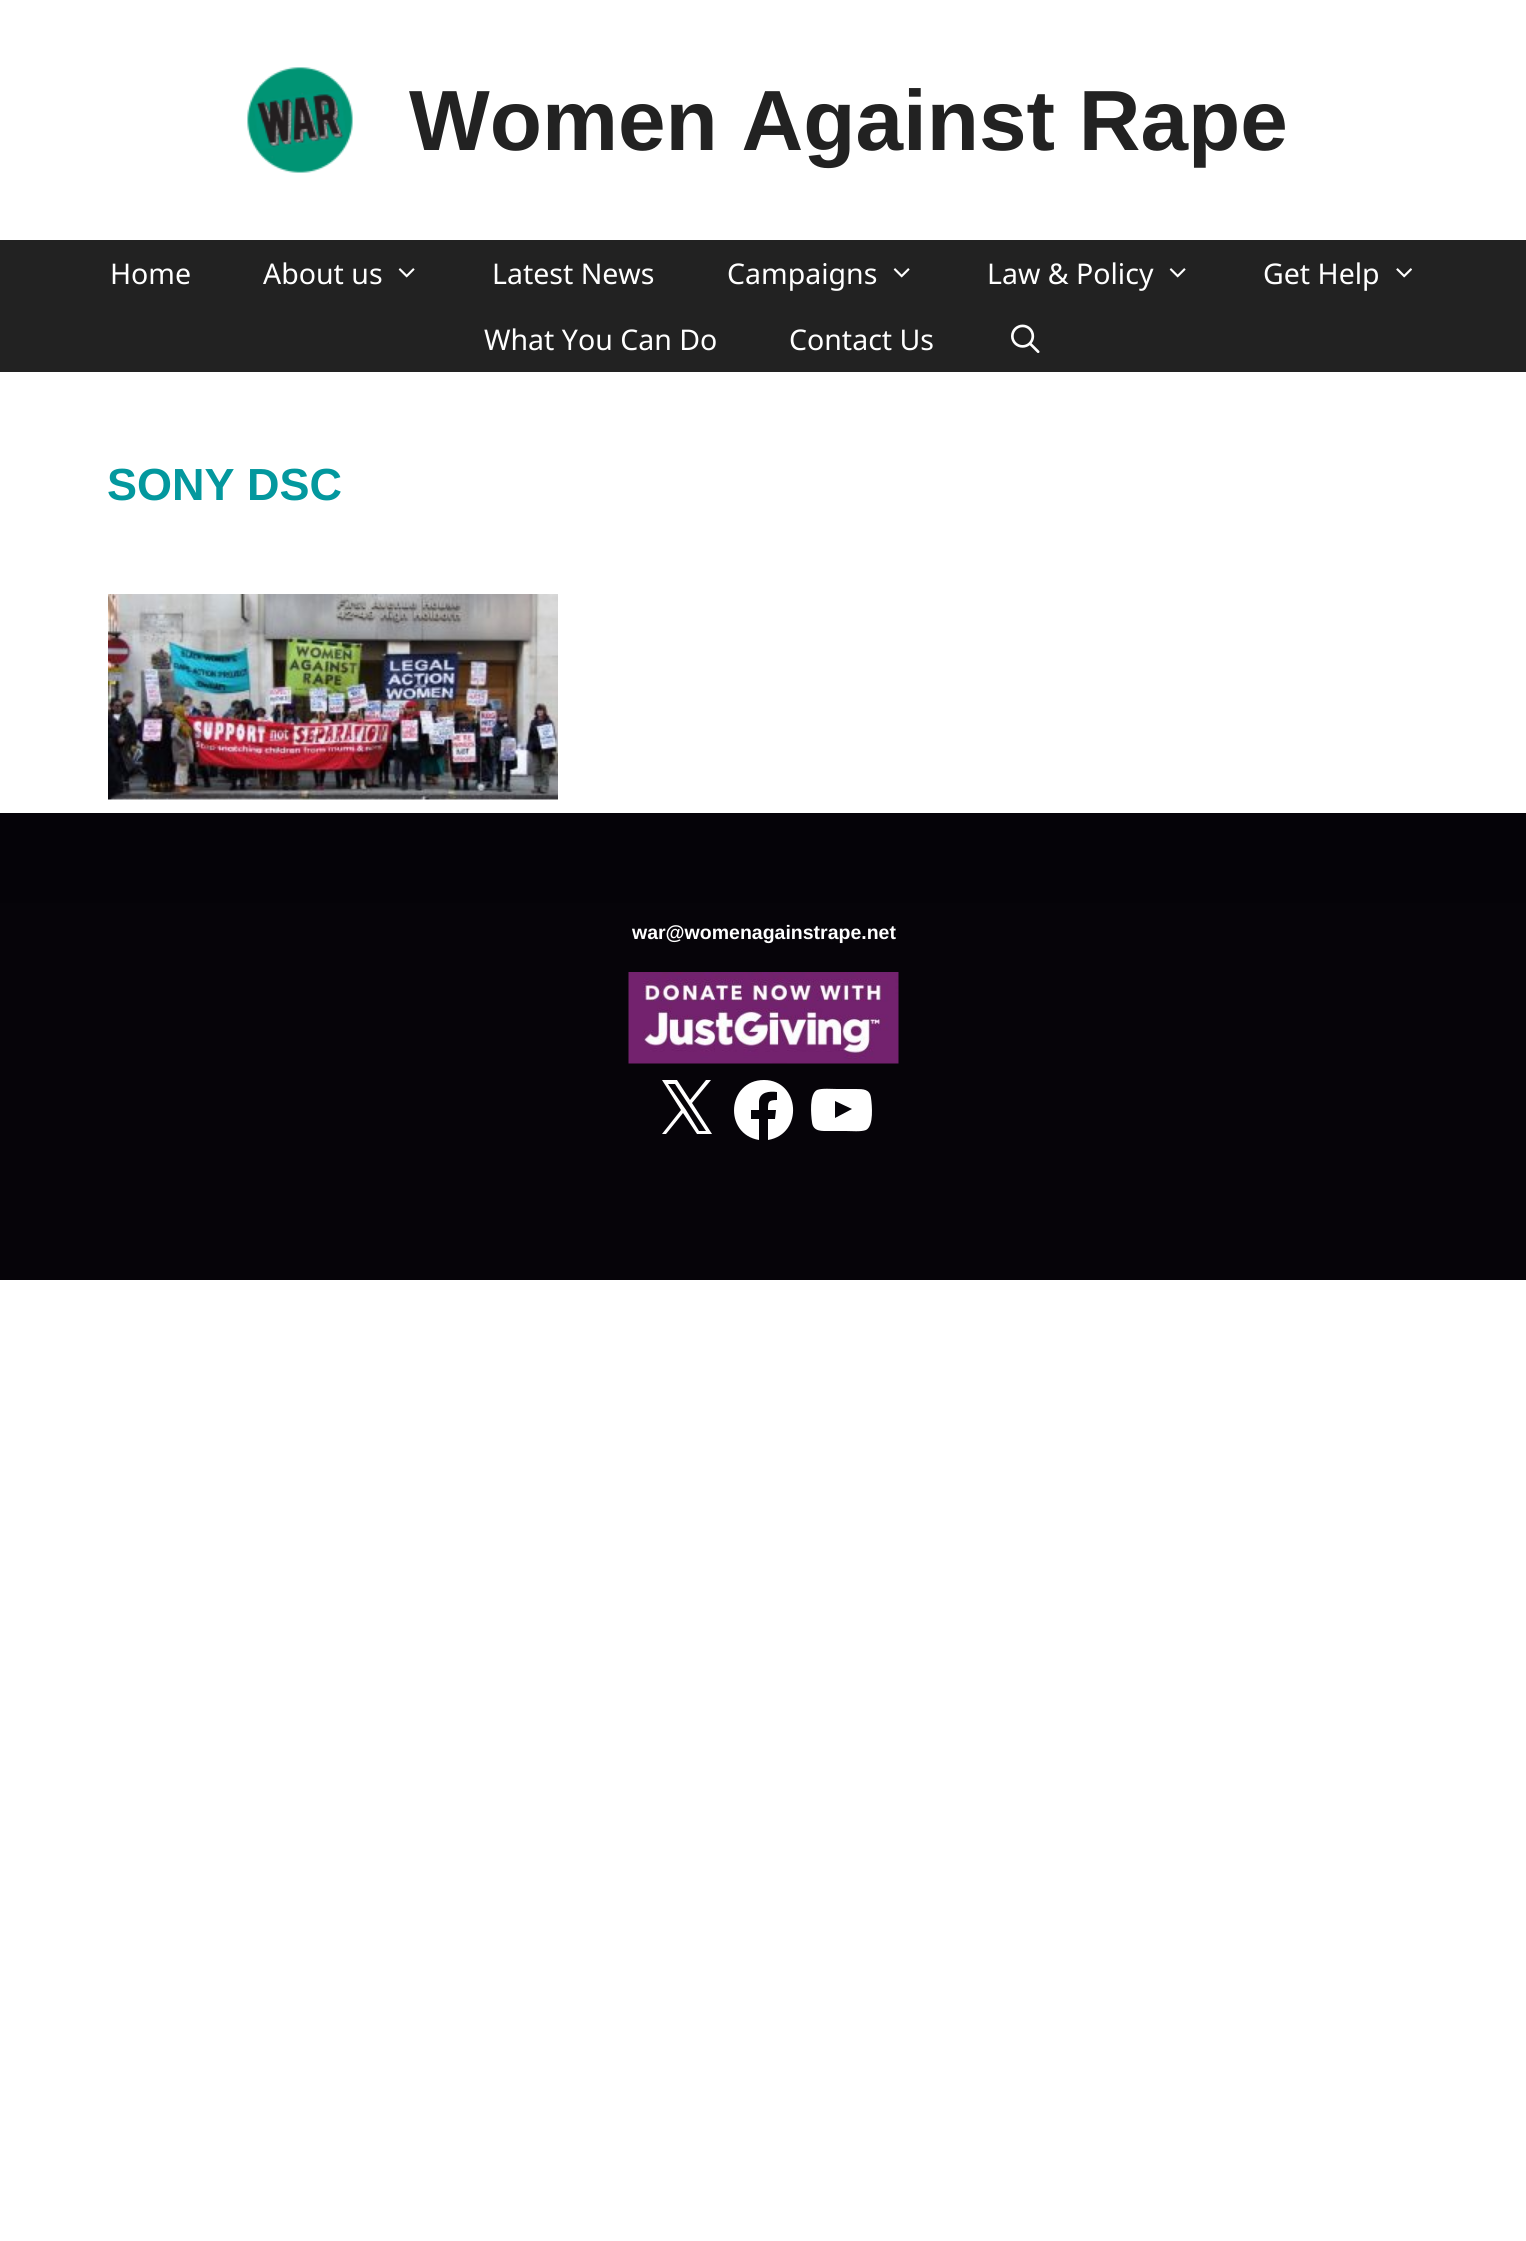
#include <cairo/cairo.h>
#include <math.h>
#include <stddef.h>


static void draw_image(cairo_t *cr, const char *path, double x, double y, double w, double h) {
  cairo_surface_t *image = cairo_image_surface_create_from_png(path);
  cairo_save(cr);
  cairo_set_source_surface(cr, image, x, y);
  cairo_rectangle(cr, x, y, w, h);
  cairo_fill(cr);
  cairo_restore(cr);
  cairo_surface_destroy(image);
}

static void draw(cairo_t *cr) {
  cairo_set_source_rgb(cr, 1, 1, 1);
  cairo_paint(cr);
  draw_image(cr, "images/1.png", 247, 67, 106, 106);
  cairo_set_source_rgb(cr, 34 / 255.0, 34 / 255.0, 34 / 255.0);
  cairo_rectangle(cr, 0, 240, 1526, 132);
  cairo_fill(cr);
  draw_image(cr, "images/2.png", 398, 268, 17, 10);
  draw_image(cr, "images/2.png", 893, 268, 17, 10);
  draw_image(cr, "images/2.png", 1169, 268, 17, 10);
  draw_image(cr, "images/3.png", 1396, 268, 16, 10);
  draw_image(cr, "images/4.png", 1011, 324, 29, 29);
  draw_image(cr, "images/5.png", 108, 594, 450, 206);
  cairo_set_source_rgb(cr, 5 / 255.0, 3 / 255.0, 8 / 255.0);
  cairo_rectangle(cr, 0, 813, 1526, 90);
  cairo_fill(cr);
  cairo_set_source_rgb(cr, 6 / 255.0, 4 / 255.0, 9 / 255.0);
  cairo_rectangle(cr, 0, 903, 1526, 377);
  cairo_fill(cr);
  draw_image(cr, "images/6.png", 628, 972, 271, 92);
  cairo_set_source_rgb(cr, 1, 1, 1);
  cairo_new_path(cr);
  cairo_move_to(cr, 692, 1103);
  cairo_line_to(cr, 711, 1080);
  cairo_line_to(cr, 706, 1080);
  cairo_line_to(cr, 690, 1100);
  cairo_line_to(cr, 677, 1080);
  cairo_line_to(cr, 662, 1080);
  cairo_line_to(cr, 681, 1110);
  cairo_line_to(cr, 662, 1134);
  cairo_line_to(cr, 666, 1134);
  cairo_line_to(cr, 683, 1113);
  cairo_line_to(cr, 697, 1134);
  cairo_line_to(cr, 712, 1134);
  cairo_close_path(cr);
  cairo_move_to(cr, 686, 1110);
  cairo_line_to(cr, 668, 1084);
  cairo_line_to(cr, 675, 1084);
  cairo_line_to(cr, 706, 1131);
  cairo_line_to(cr, 699, 1131);
  cairo_close_path(cr);
  cairo_fill(cr);
  cairo_new_path(cr);
  cairo_move_to(cr, 764, 1080);
  cairo_curve_to(cr, 727, 1080, 723, 1134, 759, 1140);
  cairo_line_to(cr, 759, 1119);
  cairo_line_to(cr, 751, 1119);
  cairo_line_to(cr, 751, 1110);
  cairo_line_to(cr, 759, 1110);
  cairo_line_to(cr, 759, 1101);
  cairo_curve_to(cr, 760, 1092, 769, 1091, 777, 1092);
  cairo_line_to(cr, 777, 1100);
  cairo_curve_to(cr, 768, 1100, 768, 1102, 768, 1110);
  cairo_line_to(cr, 776, 1110);
  cairo_line_to(cr, 775, 1119);
  cairo_line_to(cr, 768, 1119);
  cairo_line_to(cr, 768, 1140);
  cairo_curve_to(cr, 804, 1134, 800, 1080, 764, 1080);
  cairo_close_path(cr);
  cairo_fill(cr);
  cairo_new_path(cr);
  cairo_move_to(cr, 871, 1098);
  cairo_curve_to(cr, 870, 1089, 863, 1089, 856, 1089);
  cairo_line_to(cr, 837, 1089);
  cairo_curve_to(cr, 832, 1089, 822, 1088, 817, 1090);
  cairo_curve_to(cr, 809, 1094, 811, 1115, 812, 1122);
  cairo_curve_to(cr, 813, 1132, 822, 1131, 830, 1131);
  cairo_line_to(cr, 846, 1131);
  cairo_curve_to(cr, 851, 1131, 861, 1132, 866, 1130);
  cairo_curve_to(cr, 874, 1126, 872, 1105, 871, 1098);
  cairo_close_path(cr);
  cairo_move_to(cr, 835, 1118);
  cairo_line_to(cr, 835, 1101);
  cairo_line_to(cr, 852, 1109);
  cairo_close_path(cr);
  cairo_fill(cr);
  cairo_select_font_face(cr, "Liberation Sans", CAIRO_FONT_SLANT_NORMAL, CAIRO_FONT_WEIGHT_BOLD);
  cairo_set_font_size(cr, 85.5);
  cairo_set_source_rgb(cr, 34 / 255.0, 34 / 255.0, 34 / 255.0);
  cairo_move_to(cr, 409, 150);
  cairo_show_text(cr, "Women Against Rape");
  cairo_select_font_face(cr, "Noto Sans", CAIRO_FONT_SLANT_NORMAL, CAIRO_FONT_WEIGHT_NORMAL);
  cairo_set_font_size(cr, 28.5);
  cairo_set_source_rgb(cr, 1, 1, 1);
  cairo_move_to(cr, 110, 284);
  cairo_show_text(cr, "Home");
  cairo_move_to(cr, 263, 284);
  cairo_show_text(cr, "About us");
  cairo_move_to(cr, 492, 284);
  cairo_show_text(cr, "Latest News");
  cairo_move_to(cr, 727, 284);
  cairo_show_text(cr, "Campaigns");
  cairo_move_to(cr, 987, 284);
  cairo_show_text(cr, "Law & Policy");
  cairo_move_to(cr, 1263, 284);
  cairo_show_text(cr, "Get Help");
  cairo_move_to(cr, 484, 350);
  cairo_show_text(cr, "What You Can Do");
  cairo_move_to(cr, 789, 350);
  cairo_show_text(cr, "Contact Us");
  cairo_select_font_face(cr, "Liberation Sans", CAIRO_FONT_SLANT_NORMAL, CAIRO_FONT_WEIGHT_BOLD);
  cairo_set_font_size(cr, 45);
  cairo_set_source_rgb(cr, 3 / 255.0, 152 / 255.0, 158 / 255.0);
  cairo_move_to(cr, 107, 500);
  cairo_show_text(cr, "SONY DSC");
  cairo_set_font_size(cr, 19.5);
  cairo_set_source_rgb(cr, 1, 1, 1);
  cairo_move_to(cr, 632, 939);
  cairo_show_text(cr, "war@womenagainstrape.net");
}

int main(void) {
  cairo_surface_t *surface = cairo_image_surface_create(CAIRO_FORMAT_RGB24, 1526, 2241);
  cairo_t *cr = cairo_create(surface);
  cairo_font_options_t *options = cairo_font_options_create();
  cairo_font_options_set_hint_metrics(options, CAIRO_HINT_METRICS_OFF);
  cairo_font_options_set_hint_style(options, CAIRO_HINT_STYLE_NONE);
  cairo_set_font_options(cr, options);
  cairo_set_miter_limit(cr, 4);
  draw(cr);
  cairo_surface_write_to_png(surface, "out.png");
  cairo_font_options_destroy(options);
  cairo_destroy(cr);
  cairo_surface_destroy(surface);
  return 0;
}
